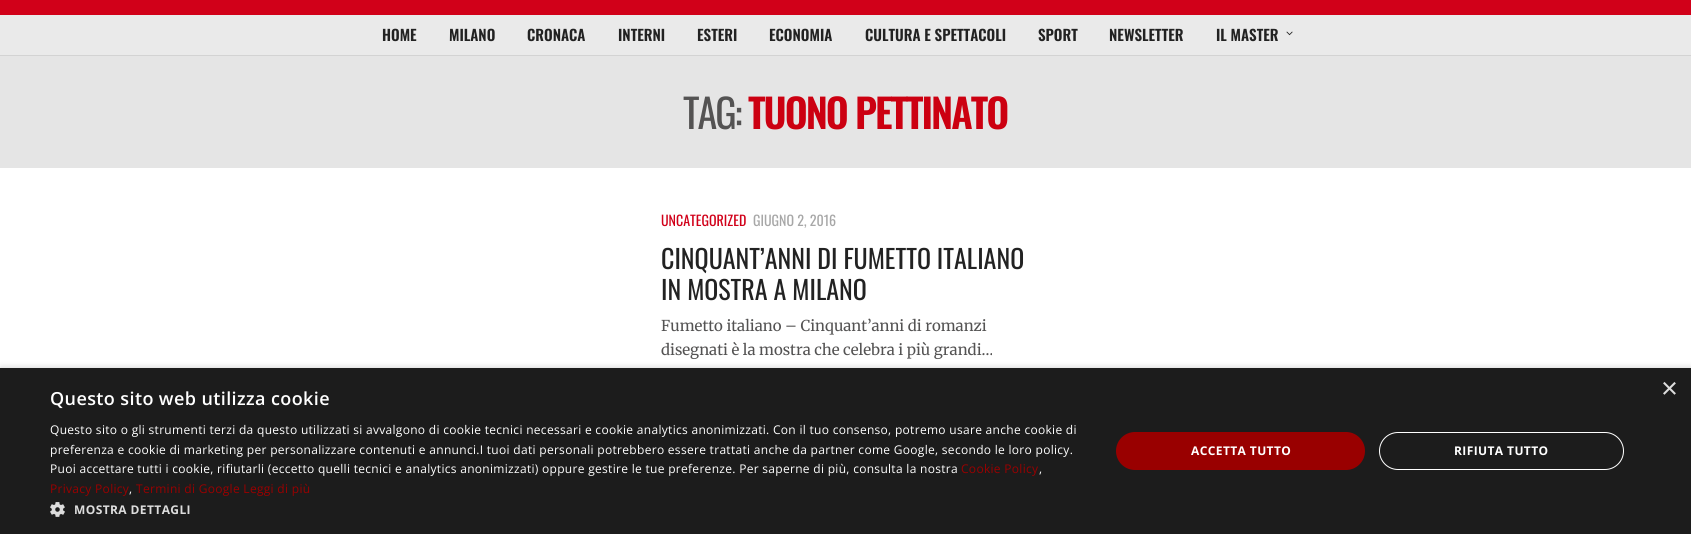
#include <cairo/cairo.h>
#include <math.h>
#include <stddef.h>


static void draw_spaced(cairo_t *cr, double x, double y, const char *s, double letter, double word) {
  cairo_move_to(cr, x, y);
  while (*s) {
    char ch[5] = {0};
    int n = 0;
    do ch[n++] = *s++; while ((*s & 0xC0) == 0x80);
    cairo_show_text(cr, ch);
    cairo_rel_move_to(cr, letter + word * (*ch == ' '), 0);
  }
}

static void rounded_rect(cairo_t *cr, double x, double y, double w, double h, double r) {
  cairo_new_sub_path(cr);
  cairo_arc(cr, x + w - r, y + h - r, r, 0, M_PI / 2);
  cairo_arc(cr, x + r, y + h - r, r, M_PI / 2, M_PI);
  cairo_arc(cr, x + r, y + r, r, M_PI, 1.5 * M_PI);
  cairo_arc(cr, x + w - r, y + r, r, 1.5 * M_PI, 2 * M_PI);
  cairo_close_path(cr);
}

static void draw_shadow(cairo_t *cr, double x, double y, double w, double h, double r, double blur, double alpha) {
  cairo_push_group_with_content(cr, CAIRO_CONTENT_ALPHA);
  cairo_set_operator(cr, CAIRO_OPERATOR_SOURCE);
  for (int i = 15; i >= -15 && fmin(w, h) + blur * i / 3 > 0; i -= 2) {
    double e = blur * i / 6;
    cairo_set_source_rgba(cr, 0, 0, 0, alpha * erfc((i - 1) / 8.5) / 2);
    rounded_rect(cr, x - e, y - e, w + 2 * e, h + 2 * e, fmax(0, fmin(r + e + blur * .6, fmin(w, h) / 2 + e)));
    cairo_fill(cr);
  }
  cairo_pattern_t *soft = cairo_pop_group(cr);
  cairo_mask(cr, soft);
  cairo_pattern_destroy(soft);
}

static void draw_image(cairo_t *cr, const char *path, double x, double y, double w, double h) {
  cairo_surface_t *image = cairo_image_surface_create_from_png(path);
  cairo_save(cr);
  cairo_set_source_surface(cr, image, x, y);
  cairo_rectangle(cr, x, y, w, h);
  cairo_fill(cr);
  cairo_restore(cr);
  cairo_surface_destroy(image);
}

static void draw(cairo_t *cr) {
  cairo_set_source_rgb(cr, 1, 1, 1);
  cairo_paint(cr);
  cairo_set_source_rgb(cr, 209 / 255.0, 0, 25 / 255.0);
  cairo_rectangle(cr, 0, 0, 1691, 15);
  cairo_fill(cr);
  cairo_set_source_rgb(cr, 234 / 255.0, 234 / 255.0, 234 / 255.0);
  cairo_rectangle(cr, 0, 15, 1691, 40);
  cairo_fill(cr);
  cairo_set_source_rgb(cr, 211 / 255.0, 211 / 255.0, 211 / 255.0);
  cairo_rectangle(cr, 0, 55, 1691, 1);
  cairo_fill(cr);
  draw_image(cr, "images/1.png", 1286, 31, 7, 5);
  cairo_set_source_rgb(cr, 229 / 255.0, 229 / 255.0, 229 / 255.0);
  cairo_rectangle(cr, 0, 56, 1691, 112);
  cairo_fill(cr);
  cairo_set_source_rgb(cr, 0, 0, 0);
  draw_shadow(cr, 1, 370, 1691, 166, 0, 4, 0.35);
  cairo_set_source_rgb(cr, 28 / 255.0, 28 / 255.0, 28 / 255.0);
  cairo_rectangle(cr, 0, 368, 1691, 166);
  cairo_fill(cr);
  draw_image(cr, "images/2.png", 50, 502, 15, 15);
  cairo_set_source_rgb(cr, 153 / 255.0, 0, 0);
  rounded_rect(cr, 1116, 432, 249, 38, 19);
  cairo_fill(cr);
  rounded_rect(cr, 1379.5, 432.5, 244, 37, 18.5);
  cairo_set_source_rgb(cr, 1, 1, 1);
  cairo_set_line_width(cr, 1);
  cairo_stroke(cr);
  cairo_select_font_face(cr, "Oswald SemiBold", CAIRO_FONT_SLANT_NORMAL, CAIRO_FONT_WEIGHT_NORMAL);
  cairo_set_font_size(cr, 15);
  cairo_set_source_rgb(cr, 34 / 255.0, 34 / 255.0, 34 / 255.0);
  cairo_move_to(cr, 382, 41);
  cairo_show_text(cr, "HOME");
  cairo_move_to(cr, 449, 41);
  cairo_show_text(cr, "MILANO");
  cairo_move_to(cr, 527, 41);
  cairo_show_text(cr, "CRONACA");
  cairo_move_to(cr, 618, 41);
  cairo_show_text(cr, "INTERNI");
  cairo_move_to(cr, 697, 41);
  cairo_show_text(cr, "ESTERI");
  cairo_move_to(cr, 769, 41);
  cairo_show_text(cr, "ECONOMIA");
  cairo_move_to(cr, 865, 41);
  cairo_show_text(cr, "CULTURA E SPETTACOLI");
  cairo_move_to(cr, 1038, 41);
  cairo_show_text(cr, "SPORT");
  cairo_move_to(cr, 1109, 41);
  cairo_show_text(cr, "NEWSLETTER");
  cairo_move_to(cr, 1216, 41);
  cairo_show_text(cr, "IL MASTER");
  cairo_select_font_face(cr, "Oswald", CAIRO_FONT_SLANT_NORMAL, CAIRO_FONT_WEIGHT_NORMAL);
  cairo_set_font_size(cr, 40);
  cairo_set_source_rgb(cr, 84 / 255.0, 83 / 255.0, 83 / 255.0);
  draw_spaced(cr, 683, 129, "TAG:", -2, 0);
  cairo_select_font_face(cr, "Oswald SemiBold", CAIRO_FONT_SLANT_NORMAL, CAIRO_FONT_WEIGHT_NORMAL);
  cairo_set_source_rgb(cr, 204 / 255.0, 0, 17 / 255.0);
  draw_spaced(cr, 748, 129, "TUONO PETTINATO", -2, 0);
  cairo_select_font_face(cr, "Oswald", CAIRO_FONT_SLANT_NORMAL, CAIRO_FONT_WEIGHT_NORMAL);
  cairo_set_font_size(cr, 14);
  cairo_set_source_rgb(cr, 209 / 255.0, 0, 25 / 255.0);
  cairo_move_to(cr, 661, 226);
  cairo_show_text(cr, "UNCATEGORIZED");
  cairo_set_source_rgb(cr, 167 / 255.0, 167 / 255.0, 167 / 255.0);
  cairo_move_to(cr, 753, 226);
  cairo_show_text(cr, "GIUGNO 2, 2016");
  cairo_set_font_size(cr, 26);
  cairo_set_source_rgb(cr, 34 / 255.0, 34 / 255.0, 34 / 255.0);
  cairo_move_to(cr, 661, 269);
  cairo_show_text(cr, "CINQUANT’ANNI DI FUMETTO ITALIANO");
  cairo_move_to(cr, 661, 300);
  cairo_show_text(cr, "IN MOSTRA A MILANO");
  cairo_select_font_face(cr, "Merriweather", CAIRO_FONT_SLANT_NORMAL, CAIRO_FONT_WEIGHT_NORMAL);
  cairo_set_font_size(cr, 15);
  cairo_set_source_rgb(cr, 84 / 255.0, 83 / 255.0, 83 / 255.0);
  cairo_move_to(cr, 661, 331);
  cairo_show_text(cr, "Fumetto italiano – Cinquant’anni di romanzi");
  cairo_move_to(cr, 661, 355);
  cairo_show_text(cr, "disegnati è la mostra che celebra i più grandi…");
  cairo_select_font_face(cr, "Liberation Sans", CAIRO_FONT_SLANT_NORMAL, CAIRO_FONT_WEIGHT_NORMAL);
  cairo_set_font_size(cr, 29);
  cairo_set_source_rgb(cr, 221 / 255.0, 221 / 255.0, 221 / 255.0);
  cairo_move_to(cr, 1661, 398);
  cairo_show_text(cr, "×");
  cairo_select_font_face(cr, "Open Sans SemiBold", CAIRO_FONT_SLANT_NORMAL, CAIRO_FONT_WEIGHT_NORMAL);
  cairo_set_font_size(cr, 18);
  cairo_set_source_rgb(cr, 1, 1, 1);
  draw_spaced(cr, 50, 405, "Questo sito web utilizza cookie", 0.4, 0);
  cairo_select_font_face(cr, "Open Sans", CAIRO_FONT_SLANT_NORMAL, CAIRO_FONT_WEIGHT_NORMAL);
  cairo_set_font_size(cr, 12);
  draw_spaced(cr, 50, 434, "Questo sito o gli strumenti terzi da questo utilizzati si avvalgono di cookie tecnici necessari e cookie analytics anonimizzati. Con il tuo consenso, potremo usare anche cookie di", 0.3, 0);
  draw_spaced(cr, 50, 454, "preferenza e cookie di marketing per personalizzare contenuti e annunci.I tuoi dati personali potrebbero essere trattati anche da partner come Google, secondo le loro policy.", 0.3, 0);
  draw_spaced(cr, 50, 473, "Puoi accettare tutti i cookie, rifiutarli (eccetto quelli tecnici e analytics anonimizzati) oppure gestire le tue preferenze. Per saperne di più, consulta la nostra", 0.3, 0);
  cairo_set_source_rgb(cr, 153 / 255.0, 0, 0);
  draw_spaced(cr, 961, 473, "Cookie Policy", 0.3, 0);
  cairo_set_source_rgb(cr, 1, 1, 1);
  draw_spaced(cr, 1039, 473, ",", 0.3, 0);
  cairo_set_source_rgb(cr, 153 / 255.0, 0, 0);
  draw_spaced(cr, 50, 493, "Privacy Policy", 0.3, 0);
  cairo_set_source_rgb(cr, 1, 1, 1);
  draw_spaced(cr, 129, 493, ",", 0.3, 0);
  cairo_set_source_rgb(cr, 153 / 255.0, 0, 0);
  draw_spaced(cr, 136, 493, "Termini di Google Leggi di più", 0.3, 0);
  cairo_select_font_face(cr, "Open Sans", CAIRO_FONT_SLANT_NORMAL, CAIRO_FONT_WEIGHT_BOLD);
  cairo_set_source_rgb(cr, 221 / 255.0, 221 / 255.0, 221 / 255.0);
  draw_spaced(cr, 74, 514, "MOSTRA DETTAGLI", 0.4, 0);
  cairo_set_source_rgb(cr, 1, 1, 1);
  draw_spaced(cr, 1191, 455, "ACCETTA TUTTO", 0.4, 0);
  draw_spaced(cr, 1454, 455, "RIFIUTA TUTTO", 0.4, 0);
}

int main(void) {
  cairo_surface_t *surface = cairo_image_surface_create(CAIRO_FORMAT_RGB24, 1691, 534);
  cairo_t *cr = cairo_create(surface);
  cairo_font_options_t *options = cairo_font_options_create();
  cairo_font_options_set_hint_metrics(options, CAIRO_HINT_METRICS_OFF);
  cairo_font_options_set_hint_style(options, CAIRO_HINT_STYLE_NONE);
  cairo_set_font_options(cr, options);
  cairo_set_miter_limit(cr, 4);
  draw(cr);
  cairo_surface_write_to_png(surface, "out.png");
  cairo_font_options_destroy(options);
  cairo_destroy(cr);
  cairo_surface_destroy(surface);
  return 0;
}
